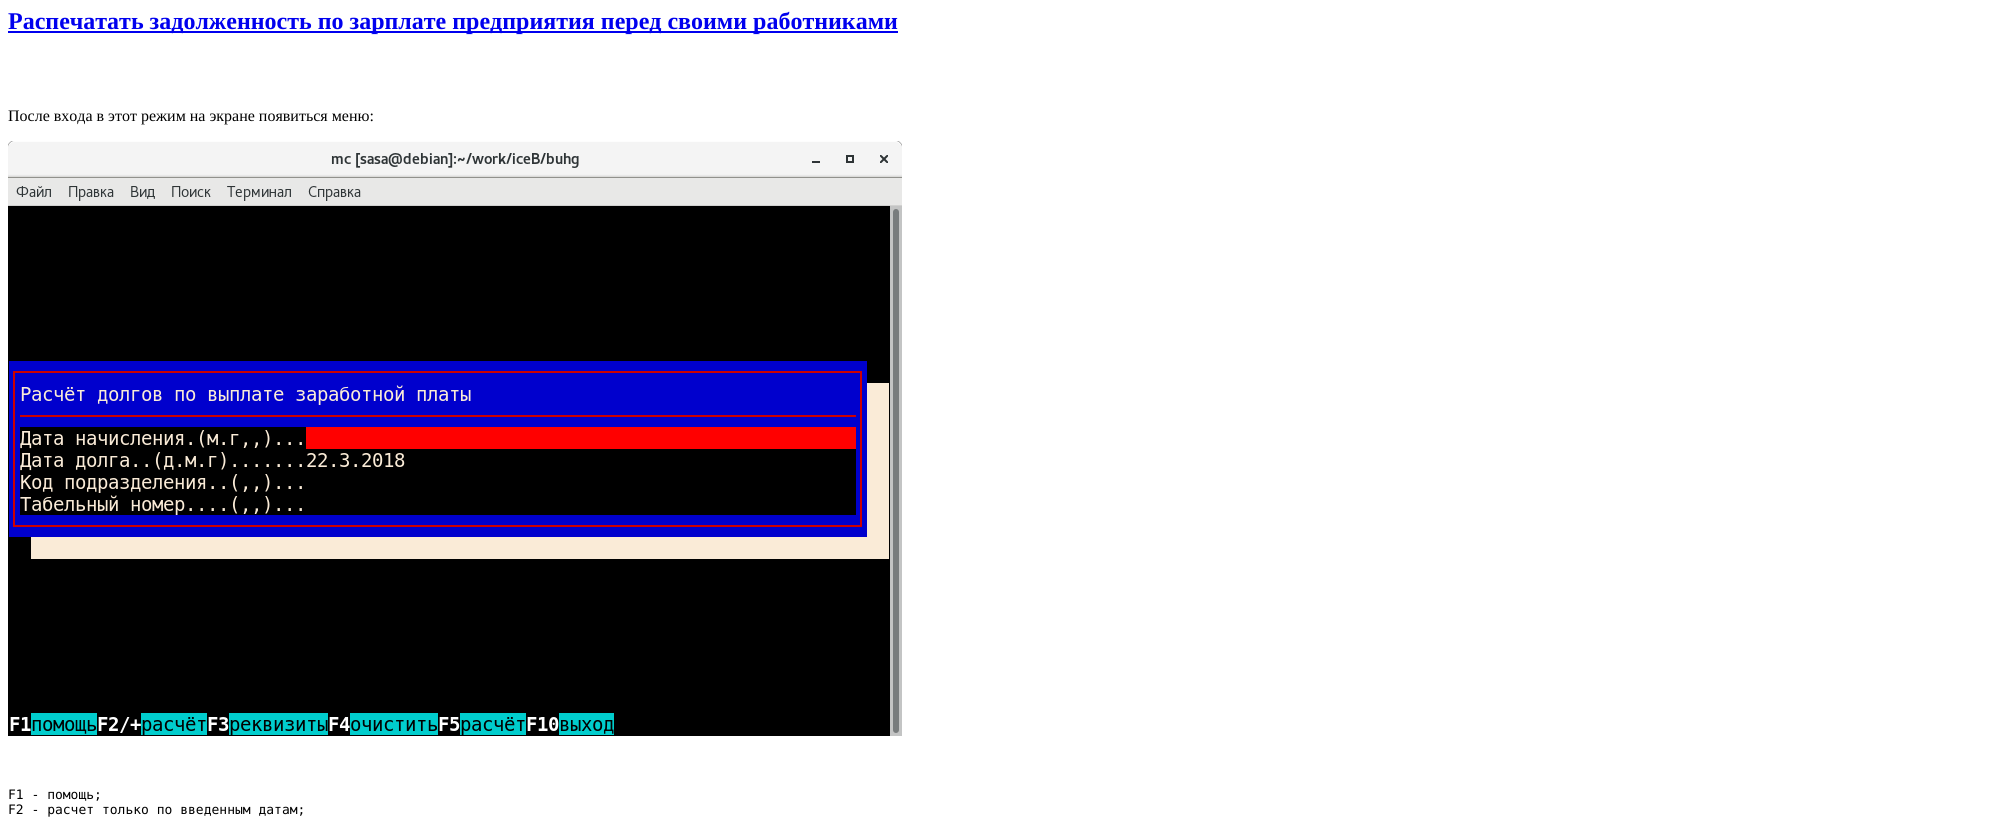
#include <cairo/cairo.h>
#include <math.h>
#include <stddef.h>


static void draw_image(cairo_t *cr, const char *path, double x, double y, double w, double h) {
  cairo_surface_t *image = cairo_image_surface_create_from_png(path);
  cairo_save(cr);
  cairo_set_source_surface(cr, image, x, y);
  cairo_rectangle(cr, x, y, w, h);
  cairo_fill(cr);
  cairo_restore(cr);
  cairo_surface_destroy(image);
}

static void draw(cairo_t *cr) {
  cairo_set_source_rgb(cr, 1, 1, 1);
  cairo_paint(cr);
  cairo_set_source_rgb(cr, 0, 0, 238 / 255.0);
  cairo_rectangle(cr, 8, 31, 890, 2);
  cairo_fill(cr);
  draw_image(cr, "images/1.png", 8, 141, 894, 595);
  cairo_select_font_face(cr, "Liberation Serif", CAIRO_FONT_SLANT_NORMAL, CAIRO_FONT_WEIGHT_BOLD);
  cairo_set_font_size(cr, 24);
  cairo_move_to(cr, 8, 29);
  cairo_show_text(cr, "Распечатать задолженность по зарплате предприятия перед своими работниками");
  cairo_select_font_face(cr, "Liberation Serif", CAIRO_FONT_SLANT_NORMAL, CAIRO_FONT_WEIGHT_NORMAL);
  cairo_set_font_size(cr, 16);
  cairo_set_source_rgb(cr, 0, 0, 0);
  cairo_move_to(cr, 8, 121);
  cairo_show_text(cr, "После входа в этот режим на экране появиться меню:");
  cairo_select_font_face(cr, "DejaVu Sans Mono", CAIRO_FONT_SLANT_NORMAL, CAIRO_FONT_WEIGHT_NORMAL);
  cairo_set_font_size(cr, 13);
  cairo_move_to(cr, 8, 799);
  cairo_show_text(cr, "F1 - помощь;");
  cairo_move_to(cr, 8, 814);
  cairo_show_text(cr, "F2 - расчет только по введенным датам;");
}

int main(void) {
  cairo_surface_t *surface = cairo_image_surface_create(CAIRO_FORMAT_RGB24, 2015, 820);
  cairo_t *cr = cairo_create(surface);
  cairo_font_options_t *options = cairo_font_options_create();
  cairo_font_options_set_hint_metrics(options, CAIRO_HINT_METRICS_OFF);
  cairo_font_options_set_hint_style(options, CAIRO_HINT_STYLE_NONE);
  cairo_set_font_options(cr, options);
  cairo_set_miter_limit(cr, 4);
  draw(cr);
  cairo_surface_write_to_png(surface, "out.png");
  cairo_font_options_destroy(options);
  cairo_destroy(cr);
  cairo_surface_destroy(surface);
  return 0;
}
